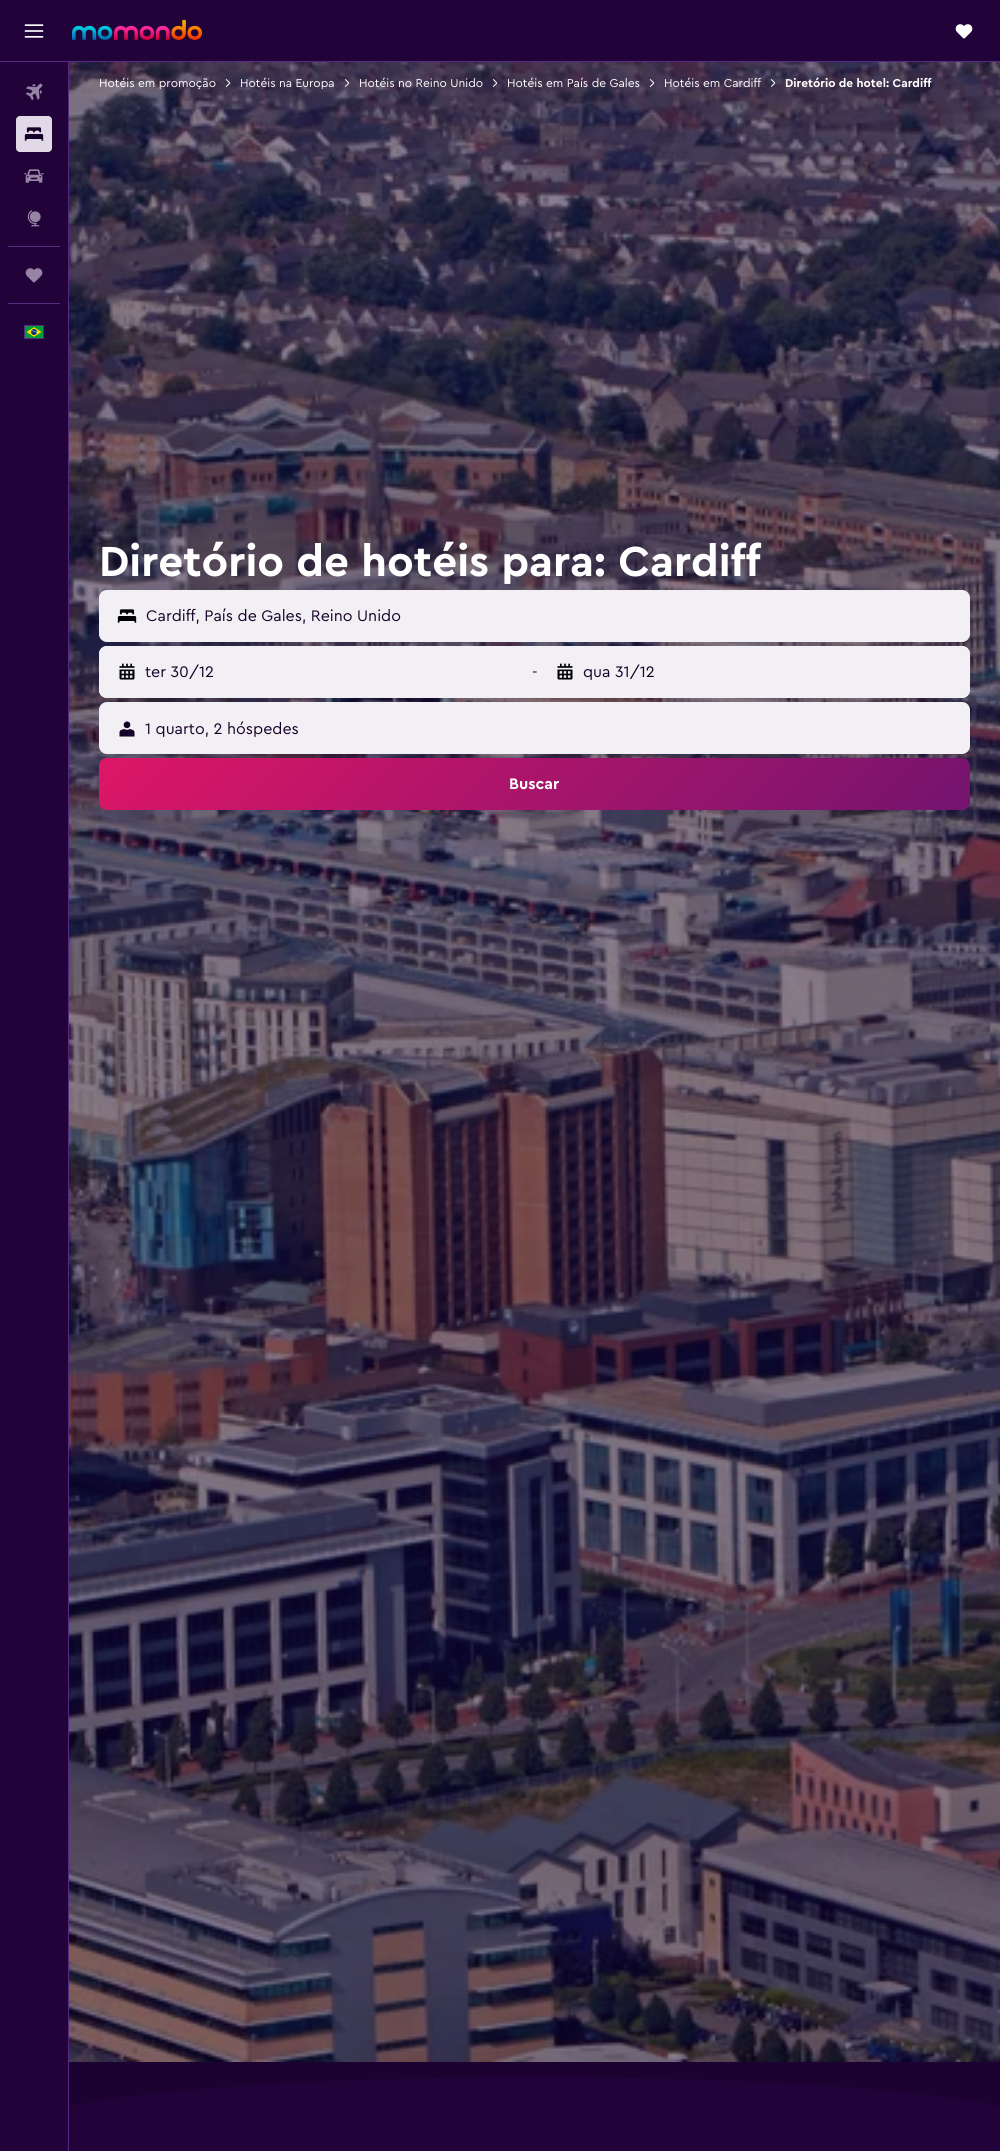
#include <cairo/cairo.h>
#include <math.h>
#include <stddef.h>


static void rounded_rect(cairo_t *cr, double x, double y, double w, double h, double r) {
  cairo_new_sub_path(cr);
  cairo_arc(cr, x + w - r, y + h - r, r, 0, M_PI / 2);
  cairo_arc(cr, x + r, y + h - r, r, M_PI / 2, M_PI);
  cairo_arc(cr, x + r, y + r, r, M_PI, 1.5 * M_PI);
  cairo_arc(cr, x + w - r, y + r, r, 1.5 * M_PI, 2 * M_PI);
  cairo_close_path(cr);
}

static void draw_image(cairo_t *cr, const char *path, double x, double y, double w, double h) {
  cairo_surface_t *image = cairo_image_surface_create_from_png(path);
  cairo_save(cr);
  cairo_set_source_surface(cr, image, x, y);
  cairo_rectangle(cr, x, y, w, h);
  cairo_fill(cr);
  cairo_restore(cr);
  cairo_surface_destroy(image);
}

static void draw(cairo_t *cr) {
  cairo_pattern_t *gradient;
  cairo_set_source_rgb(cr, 33 / 255.0, 3 / 255.0, 58 / 255.0);
  cairo_paint(cr);
  cairo_set_source_rgb(cr, 27 / 255.0, 2 / 255.0, 49 / 255.0);
  cairo_rectangle(cr, 69, 2062, 931, 45);
  cairo_fill(cr);
  cairo_set_source_rgb(cr, 87 / 255.0, 41 / 255.0, 128 / 255.0);
  cairo_rectangle(cr, 0, 61, 1000, 1);
  cairo_fill(cr);
  draw_image(cr, "images/1.png", 24, 24, 20, 14);
  draw_image(cr, "images/2.png", 72, 20, 130, 20);
  draw_image(cr, "images/3.png", 955, 24, 18, 15);
  cairo_rectangle(cr, 68, 62, 1, 2089);
  cairo_fill(cr);
  draw_image(cr, "images/4.png", 25, 83, 18, 18);
  cairo_set_source_rgb(cr, 225 / 255.0, 217 / 255.0, 232 / 255.0);
  rounded_rect(cr, 16, 116, 36, 36, 4);
  cairo_fill(cr);
  draw_image(cr, "images/5.png", 24, 127, 20, 14);
  draw_image(cr, "images/6.png", 24, 169, 20, 14);
  draw_image(cr, "images/7.png", 27, 210, 14, 17);
  cairo_set_source_rgb(cr, 87 / 255.0, 41 / 255.0, 128 / 255.0);
  cairo_rectangle(cr, 8, 246, 52, 1);
  cairo_fill(cr);
  draw_image(cr, "images/8.png", 25, 268, 18, 15);
  cairo_rectangle(cr, 8, 303, 52, 1);
  cairo_fill(cr);
  cairo_rectangle(cr, 24.5, 325.5, 19, 13);
  cairo_set_line_width(cr, 1);
  cairo_stroke(cr);
  draw_image(cr, "images/9.png", 25, 326, 18, 12);
  draw_image(cr, "images/10.png", 69, 62, 931, 2000);
  cairo_save(cr);
  cairo_rectangle(cr, 69, 62, 931, 2065);
  cairo_clip(cr);
  cairo_set_source_rgb(cr, 33 / 255.0, 3 / 255.0, 58 / 255.0);
  cairo_new_path(cr);
  cairo_move_to(cr, 534.5, 2077);
  cairo_curve_to(cr, 817.5, 2077, 1047, 2099.5, 1047, 2127);
  cairo_curve_to(cr, 1047, 2154.5, 817.5, 2177, 534.5, 2177);
  cairo_curve_to(cr, 251.5, 2177, 22, 2154.5, 22, 2127);
  cairo_curve_to(cr, 22, 2099.5, 251.5, 2077, 534.5, 2077);
  cairo_close_path(cr);
  cairo_fill(cr);
  cairo_restore(cr);
  draw_image(cr, "images/11.png", 225, 79, 6, 8);
  draw_image(cr, "images/12.png", 344, 79, 6, 8);
  draw_image(cr, "images/13.png", 492, 79, 6, 8);
  draw_image(cr, "images/14.png", 649, 79, 6, 8);
  draw_image(cr, "images/15.png", 770, 79, 6, 8);
  cairo_set_source_rgb(cr, 243 / 255.0, 240 / 255.0, 245 / 255.0);
  rounded_rect(cr, 99.5, 590.5, 870, 51, 7.5);
  cairo_fill_preserve(cr);
  cairo_stroke(cr);
  draw_image(cr, "images/16.png", 117, 609, 20, 14);
  rounded_rect(cr, 99, 646, 871, 52, 8);
  cairo_fill(cr);
  rounded_rect(cr, 99, 646, 433, 52, 8);
  cairo_fill(cr);
  draw_image(cr, "images/17.png", 119, 663, 16, 17);
  rounded_rect(cr, 537, 646, 433, 52, 8);
  cairo_fill(cr);
  draw_image(cr, "images/17.png", 557, 663, 16, 17);
  rounded_rect(cr, 99, 702, 871, 52, 8);
  cairo_fill(cr);
  draw_image(cr, "images/18.png", 119, 721, 16, 16);
  gradient = cairo_pattern_create_linear(304, 553, 765, 1015);
  cairo_pattern_add_color_stop_rgba(gradient, 0, 222 / 255.0, 22 / 255.0, 102 / 255.0, 1);
  cairo_pattern_add_color_stop_rgba(gradient, 1, 115 / 255.0, 20 / 255.0, 111 / 255.0, 1);
  cairo_set_source(cr, gradient);
  cairo_pattern_destroy(gradient);
  rounded_rect(cr, 99, 758, 871, 52, 8);
  cairo_fill(cr);
  cairo_select_font_face(cr, "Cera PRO", CAIRO_FONT_SLANT_NORMAL, CAIRO_FONT_WEIGHT_NORMAL);
  cairo_set_font_size(cr, 12);
  cairo_set_source_rgb(cr, 1, 1, 1);
  cairo_move_to(cr, 99, 87);
  cairo_show_text(cr, "Hotéis em promoção");
  cairo_move_to(cr, 240, 87);
  cairo_show_text(cr, "Hotéis na Europa");
  cairo_move_to(cr, 359, 87);
  cairo_show_text(cr, "Hotéis no Reino Unido");
  cairo_move_to(cr, 507, 87);
  cairo_show_text(cr, "Hotéis em País de Gales");
  cairo_move_to(cr, 664, 87);
  cairo_show_text(cr, "Hotéis em Cardiff");
  cairo_select_font_face(cr, "Cera PRO", CAIRO_FONT_SLANT_NORMAL, CAIRO_FONT_WEIGHT_BOLD);
  cairo_move_to(cr, 785, 87);
  cairo_show_text(cr, "Diretório de hotel: Cardiff");
  cairo_set_font_size(cr, 44);
  cairo_move_to(cr, 99, 576);
  cairo_show_text(cr, "Diretório de hotéis para: Cardiff");
  cairo_select_font_face(cr, "Cera PRO", CAIRO_FONT_SLANT_NORMAL, CAIRO_FONT_WEIGHT_NORMAL);
  cairo_set_font_size(cr, 16);
  cairo_set_source_rgb(cr, 21 / 255.0, 1 / 255.0, 39 / 255.0);
  cairo_move_to(cr, 146, 621);
  cairo_show_text(cr, "Cardiff, País de Gales, Reino Unido");
  cairo_move_to(cr, 145, 677);
  cairo_show_text(cr, "ter 30/12");
  cairo_move_to(cr, 532, 677);
  cairo_show_text(cr, "-");
  cairo_move_to(cr, 583, 677);
  cairo_show_text(cr, "qua 31/12");
  cairo_move_to(cr, 145, 734);
  cairo_show_text(cr, "1 quarto, 2 hóspedes");
  cairo_select_font_face(cr, "Cera PRO", CAIRO_FONT_SLANT_NORMAL, CAIRO_FONT_WEIGHT_BOLD);
  cairo_set_source_rgb(cr, 1, 1, 1);
  cairo_move_to(cr, 509, 789);
  cairo_show_text(cr, "Buscar");
}

int main(void) {
  cairo_surface_t *surface = cairo_image_surface_create(CAIRO_FORMAT_RGB24, 1000, 2151);
  cairo_t *cr = cairo_create(surface);
  cairo_font_options_t *options = cairo_font_options_create();
  cairo_font_options_set_hint_metrics(options, CAIRO_HINT_METRICS_OFF);
  cairo_font_options_set_hint_style(options, CAIRO_HINT_STYLE_NONE);
  cairo_set_font_options(cr, options);
  cairo_set_miter_limit(cr, 4);
  draw(cr);
  cairo_surface_write_to_png(surface, "out.png");
  cairo_font_options_destroy(options);
  cairo_destroy(cr);
  cairo_surface_destroy(surface);
  return 0;
}
